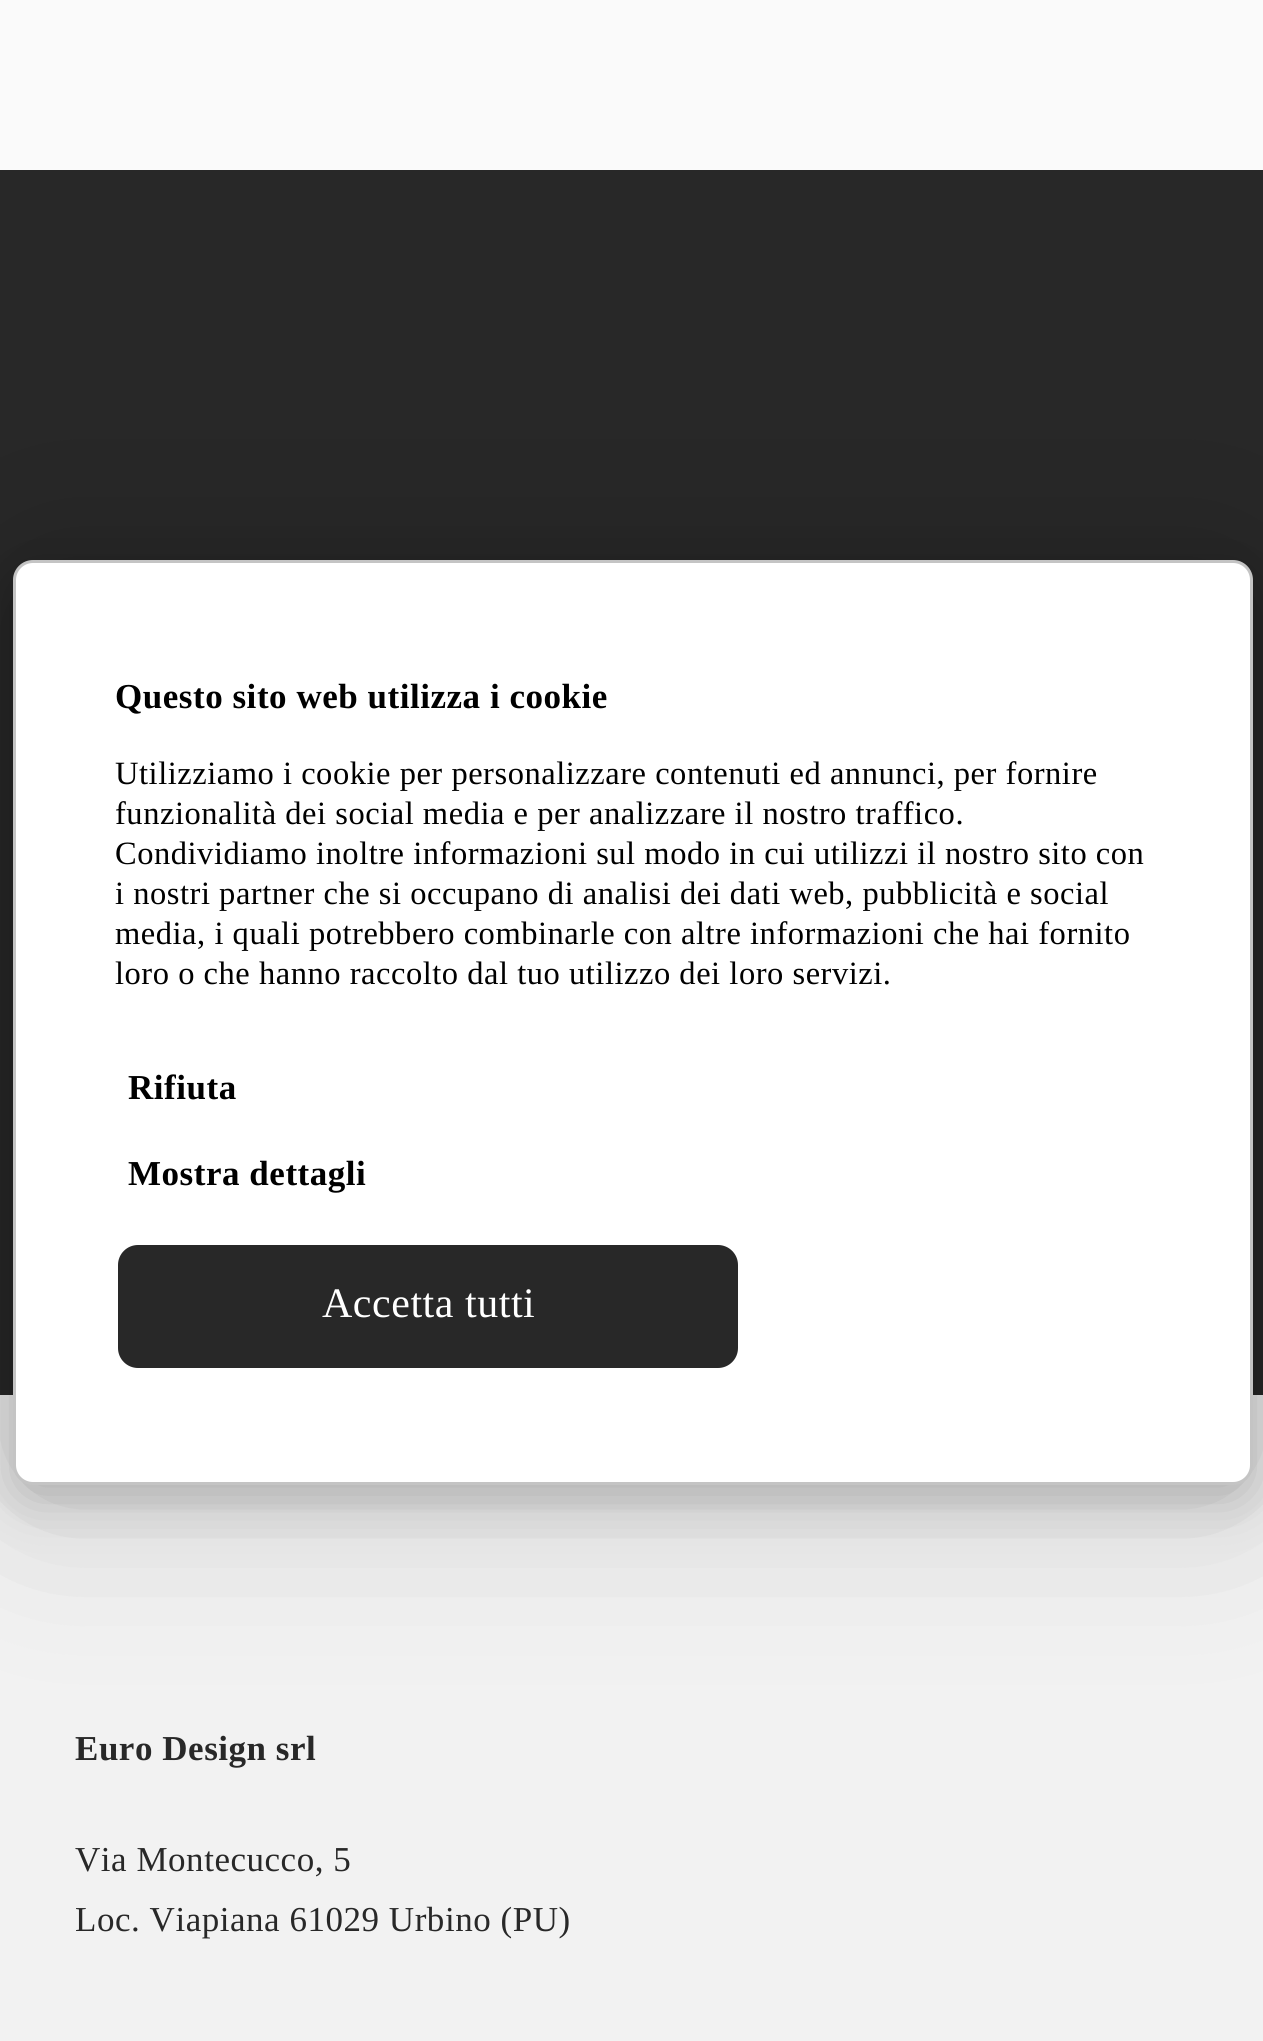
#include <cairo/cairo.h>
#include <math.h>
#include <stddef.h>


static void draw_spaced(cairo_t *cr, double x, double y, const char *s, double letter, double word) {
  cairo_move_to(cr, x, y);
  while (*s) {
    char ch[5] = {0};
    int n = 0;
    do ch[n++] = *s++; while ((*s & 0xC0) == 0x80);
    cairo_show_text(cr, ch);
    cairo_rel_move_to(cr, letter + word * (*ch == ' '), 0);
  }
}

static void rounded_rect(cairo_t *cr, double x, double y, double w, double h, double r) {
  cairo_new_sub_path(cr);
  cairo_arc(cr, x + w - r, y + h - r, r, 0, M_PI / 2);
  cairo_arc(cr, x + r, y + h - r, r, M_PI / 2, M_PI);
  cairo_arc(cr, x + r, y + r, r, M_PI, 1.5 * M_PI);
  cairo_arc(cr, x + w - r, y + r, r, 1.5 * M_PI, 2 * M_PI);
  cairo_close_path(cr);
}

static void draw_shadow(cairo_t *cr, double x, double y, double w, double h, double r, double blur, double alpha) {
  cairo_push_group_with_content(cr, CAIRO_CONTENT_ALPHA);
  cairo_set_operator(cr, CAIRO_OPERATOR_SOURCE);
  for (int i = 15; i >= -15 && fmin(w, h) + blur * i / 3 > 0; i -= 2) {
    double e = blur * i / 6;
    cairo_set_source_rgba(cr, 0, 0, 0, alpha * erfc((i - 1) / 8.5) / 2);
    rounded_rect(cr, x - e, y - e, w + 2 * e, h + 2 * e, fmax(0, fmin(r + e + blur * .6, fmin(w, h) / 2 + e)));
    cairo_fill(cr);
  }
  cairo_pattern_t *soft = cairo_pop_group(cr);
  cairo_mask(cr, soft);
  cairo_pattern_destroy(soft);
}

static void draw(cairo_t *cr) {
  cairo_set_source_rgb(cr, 250 / 255.0, 250 / 255.0, 250 / 255.0);
  cairo_paint(cr);
  cairo_set_source_rgb(cr, 40 / 255.0, 40 / 255.0, 40 / 255.0);
  cairo_rectangle(cr, 0, 170, 1263, 1225);
  cairo_fill(cr);
  cairo_set_source_rgb(cr, 242 / 255.0, 242 / 255.0, 242 / 255.0);
  cairo_rectangle(cr, 0, 1395, 1263, 646);
  cairo_fill(cr);
  cairo_set_source_rgb(cr, 0, 0, 0);
  draw_shadow(cr, 13, 575, 1240, 925, 20, 25, 0.19);
  draw_shadow(cr, 13, 570, 1240, 925, 20, 87.5, 0.2);
  cairo_set_source_rgb(cr, 1, 1, 1);
  rounded_rect(cr, 14.5, 561.5, 1237, 922, 18.5);
  cairo_fill_preserve(cr);
  cairo_set_source_rgb(cr, 196 / 255.0, 196 / 255.0, 196 / 255.0);
  cairo_set_line_width(cr, 3);
  cairo_stroke(cr);
  cairo_set_source_rgb(cr, 40 / 255.0, 40 / 255.0, 40 / 255.0);
  rounded_rect(cr, 118, 1245, 620, 123, 20);
  cairo_fill(cr);
  cairo_select_font_face(cr, "Liberation Serif", CAIRO_FONT_SLANT_NORMAL, CAIRO_FONT_WEIGHT_BOLD);
  cairo_set_font_size(cr, 35);
  cairo_set_source_rgb(cr, 0, 0, 0);
  draw_spaced(cr, 115, 708, "Questo sito web utilizza i cookie", 0.53, 0);
  cairo_select_font_face(cr, "Liberation Serif", CAIRO_FONT_SLANT_NORMAL, CAIRO_FONT_WEIGHT_NORMAL);
  cairo_set_font_size(cr, 32.5);
  draw_spaced(cr, 115, 784, "Utilizziamo i cookie per personalizzare contenuti ed annunci, per fornire", 0.53, 0);
  draw_spaced(cr, 115, 824, "funzionalità dei social media e per analizzare il nostro traffico.", 0.53, 0);
  draw_spaced(cr, 115, 864, "Condividiamo inoltre informazioni sul modo in cui utilizzi il nostro sito con", 0.53, 0);
  draw_spaced(cr, 115, 904, "i nostri partner che si occupano di analisi dei dati web, pubblicità e social", 0.53, 0);
  draw_spaced(cr, 115, 944, "media, i quali potrebbero combinarle con altre informazioni che hai fornito", 0.53, 0);
  draw_spaced(cr, 115, 984, "loro o che hanno raccolto dal tuo utilizzo dei loro servizi.", 0.53, 0);
  cairo_select_font_face(cr, "Liberation Serif", CAIRO_FONT_SLANT_NORMAL, CAIRO_FONT_WEIGHT_BOLD);
  cairo_set_font_size(cr, 35);
  draw_spaced(cr, 128, 1099, "Rifiuta", 0.53, 0);
  draw_spaced(cr, 128, 1185, "Mostra dettagli", 0.53, 0);
  cairo_select_font_face(cr, "Liberation Serif", CAIRO_FONT_SLANT_NORMAL, CAIRO_FONT_WEIGHT_NORMAL);
  cairo_set_font_size(cr, 42);
  cairo_set_source_rgb(cr, 1, 1, 1);
  draw_spaced(cr, 322, 1317, "Accetta tutti", 0.53, 0);
  cairo_select_font_face(cr, "Liberation Serif", CAIRO_FONT_SLANT_NORMAL, CAIRO_FONT_WEIGHT_BOLD);
  cairo_set_font_size(cr, 35);
  cairo_set_source_rgb(cr, 40 / 255.0, 40 / 255.0, 40 / 255.0);
  draw_spaced(cr, 75, 1760, "Euro Design srl", 0.53, 0);
  cairo_select_font_face(cr, "Liberation Serif", CAIRO_FONT_SLANT_NORMAL, CAIRO_FONT_WEIGHT_NORMAL);
  draw_spaced(cr, 75, 1871, "Via Montecucco, 5", 0.53, 0);
  draw_spaced(cr, 75, 1931, "Loc. Viapiana 61029 Urbino (PU)", 0.53, 0);
}

int main(void) {
  cairo_surface_t *surface = cairo_image_surface_create(CAIRO_FORMAT_RGB24, 1263, 2041);
  cairo_t *cr = cairo_create(surface);
  cairo_font_options_t *options = cairo_font_options_create();
  cairo_font_options_set_hint_metrics(options, CAIRO_HINT_METRICS_OFF);
  cairo_font_options_set_hint_style(options, CAIRO_HINT_STYLE_NONE);
  cairo_set_font_options(cr, options);
  cairo_set_miter_limit(cr, 4);
  draw(cr);
  cairo_surface_write_to_png(surface, "out.png");
  cairo_font_options_destroy(options);
  cairo_destroy(cr);
  cairo_surface_destroy(surface);
  return 0;
}
